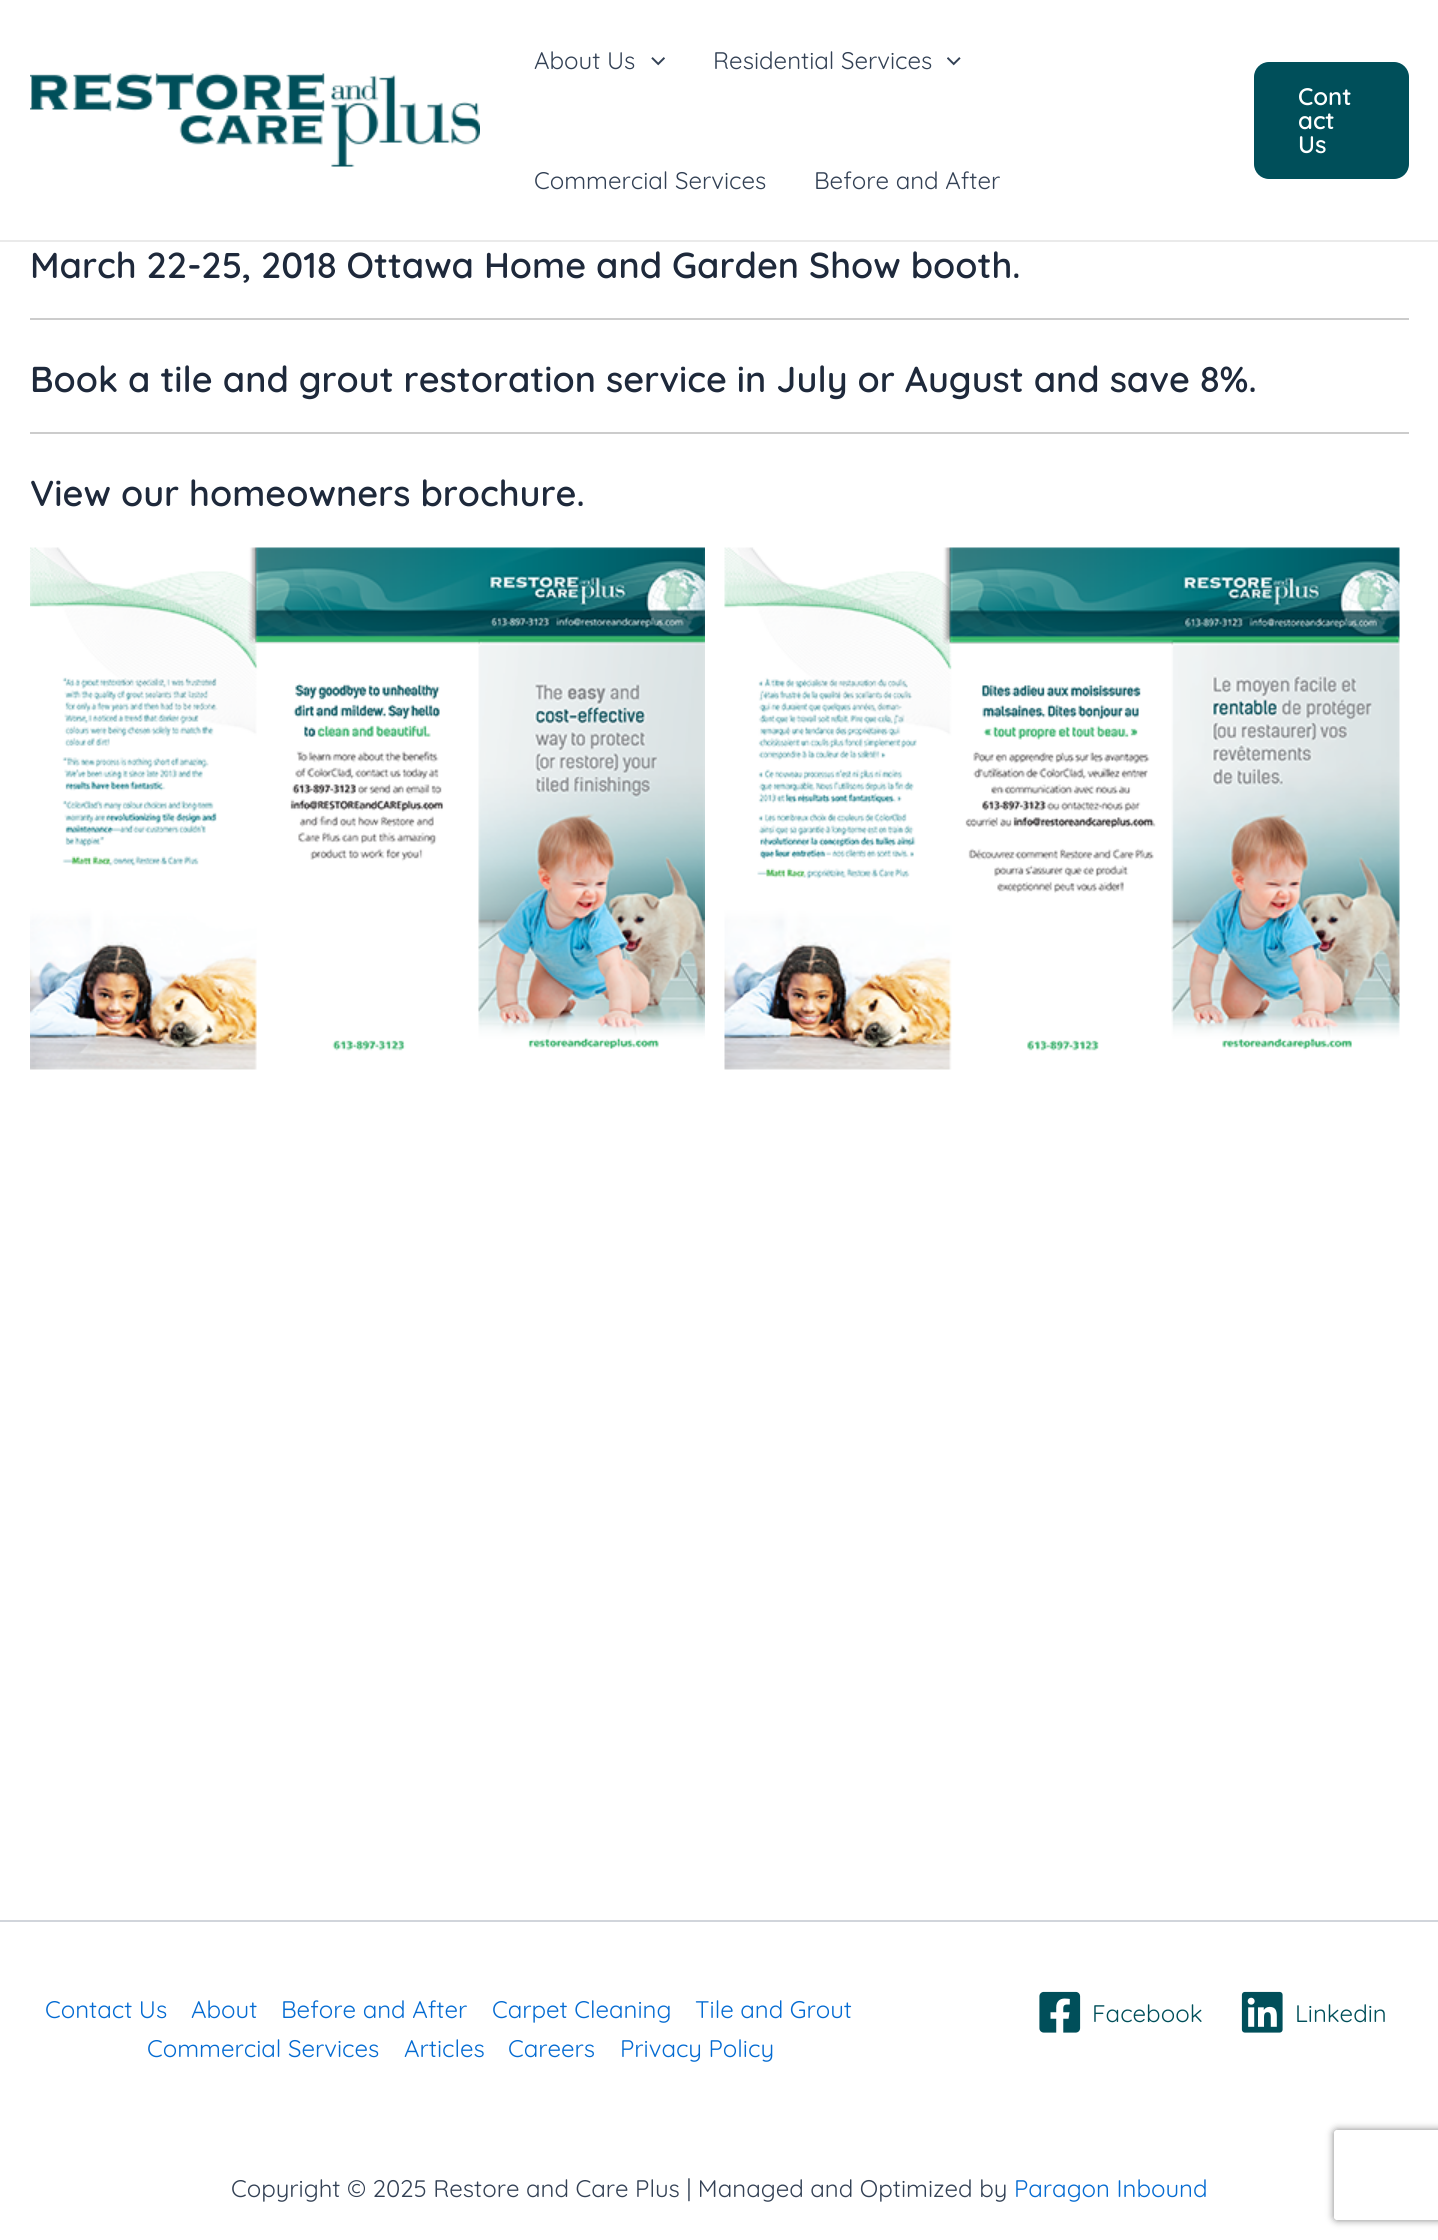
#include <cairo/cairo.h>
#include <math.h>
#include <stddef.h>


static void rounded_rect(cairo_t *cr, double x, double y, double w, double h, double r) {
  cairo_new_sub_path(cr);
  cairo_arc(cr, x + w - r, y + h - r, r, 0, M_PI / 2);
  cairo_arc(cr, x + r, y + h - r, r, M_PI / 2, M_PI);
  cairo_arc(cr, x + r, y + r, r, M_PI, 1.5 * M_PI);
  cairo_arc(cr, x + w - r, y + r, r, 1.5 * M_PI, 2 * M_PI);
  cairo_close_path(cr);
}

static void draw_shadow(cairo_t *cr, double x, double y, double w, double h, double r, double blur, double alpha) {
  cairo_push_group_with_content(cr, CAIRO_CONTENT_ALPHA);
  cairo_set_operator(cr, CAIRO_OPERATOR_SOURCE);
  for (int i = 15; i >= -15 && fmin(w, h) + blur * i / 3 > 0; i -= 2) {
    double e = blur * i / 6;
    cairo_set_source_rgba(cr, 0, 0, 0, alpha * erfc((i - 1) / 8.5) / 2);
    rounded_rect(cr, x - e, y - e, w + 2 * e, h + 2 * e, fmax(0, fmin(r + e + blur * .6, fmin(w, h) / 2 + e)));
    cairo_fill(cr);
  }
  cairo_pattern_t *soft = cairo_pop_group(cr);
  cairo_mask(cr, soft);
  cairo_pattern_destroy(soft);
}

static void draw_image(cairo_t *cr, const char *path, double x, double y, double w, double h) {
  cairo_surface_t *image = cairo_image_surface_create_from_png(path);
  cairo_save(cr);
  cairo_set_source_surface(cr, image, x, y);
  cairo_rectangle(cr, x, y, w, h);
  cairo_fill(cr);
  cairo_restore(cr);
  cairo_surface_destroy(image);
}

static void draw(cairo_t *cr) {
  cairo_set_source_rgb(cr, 1, 1, 1);
  cairo_paint(cr);
  cairo_set_source_rgb(cr, 234 / 255.0, 234 / 255.0, 234 / 255.0);
  cairo_rectangle(cr, 0, 240, 1438, 2);
  cairo_fill(cr);
  draw_image(cr, "images/1.png", 30, 73, 450, 94);
  draw_image(cr, "images/2.png", 651, 57, 14, 9);
  draw_image(cr, "images/3.png", 947, 57, 14, 9);
  cairo_set_source_rgb(cr, 0, 79 / 255.0, 90 / 255.0);
  rounded_rect(cr, 1254, 62, 155, 117, 15);
  cairo_fill(cr);
  cairo_set_source_rgb(cr, 204 / 255.0, 204 / 255.0, 204 / 255.0);
  cairo_rectangle(cr, 30, 318, 1379, 2);
  cairo_fill(cr);
  cairo_rectangle(cr, 30, 432, 1379, 2);
  cairo_fill(cr);
  draw_image(cr, "images/4.png", 30, 547, 675, 523);
  draw_image(cr, "images/5.png", 724, 547, 676, 523);
  cairo_set_source_rgb(cr, 209 / 255.0, 213 / 255.0, 219 / 255.0);
  cairo_rectangle(cr, 0, 1920, 1438, 2);
  cairo_fill(cr);
  draw_image(cr, "images/6.png", 1039, 1991, 42, 42);
  draw_image(cr, "images/7.png", 1241, 1991, 42, 42);
  cairo_save(cr);
  cairo_set_fill_rule(cr, CAIRO_FILL_RULE_EVEN_ODD);
  cairo_new_path(cr);
  cairo_move_to(cr, 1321, 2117);
  cairo_line_to(cr, 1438, 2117);
  cairo_line_to(cr, 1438, 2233);
  cairo_line_to(cr, 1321, 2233);
  cairo_close_path(cr);
  cairo_move_to(cr, 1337, 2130);
  cairo_line_to(cr, 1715, 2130);
  cairo_curve_to(cr, 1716.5, 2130, 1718, 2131.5, 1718, 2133);
  cairo_line_to(cr, 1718, 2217);
  cairo_curve_to(cr, 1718, 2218.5, 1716.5, 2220, 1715, 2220);
  cairo_line_to(cr, 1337, 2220);
  cairo_curve_to(cr, 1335.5, 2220, 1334, 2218.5, 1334, 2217);
  cairo_line_to(cr, 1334, 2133);
  cairo_curve_to(cr, 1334, 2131.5, 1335.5, 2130, 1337, 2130);
  cairo_close_path(cr);
  cairo_clip(cr);
  cairo_set_source_rgb(cr, 128 / 255.0, 128 / 255.0, 128 / 255.0);
  draw_shadow(cr, 1334, 2130, 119, 90, 3, 4, 1);
  cairo_restore(cr);
  cairo_select_font_face(cr, "Quicksand", CAIRO_FONT_SLANT_NORMAL, CAIRO_FONT_WEIGHT_NORMAL);
  cairo_set_font_size(cr, 24);
  cairo_set_source_rgb(cr, 51 / 255.0, 65 / 255.0, 85 / 255.0);
  cairo_move_to(cr, 534, 69);
  cairo_show_text(cr, "About Us");
  cairo_move_to(cr, 713, 69);
  cairo_show_text(cr, "Residential Services");
  cairo_move_to(cr, 534, 189);
  cairo_show_text(cr, "Commercial Services");
  cairo_move_to(cr, 814, 189);
  cairo_show_text(cr, "Before and After");
  cairo_select_font_face(cr, "Quicksand SemiBold", CAIRO_FONT_SLANT_NORMAL, CAIRO_FONT_WEIGHT_NORMAL);
  cairo_set_source_rgb(cr, 1, 1, 1);
  cairo_move_to(cr, 1298, 105);
  cairo_show_text(cr, "Cont");
  cairo_move_to(cr, 1298, 129);
  cairo_show_text(cr, "act");
  cairo_move_to(cr, 1298, 153);
  cairo_show_text(cr, "Us");
  cairo_set_font_size(cr, 36);
  cairo_set_source_rgb(cr, 30 / 255.0, 41 / 255.0, 59 / 255.0);
  cairo_move_to(cr, 30, 278);
  cairo_show_text(cr, "March 22-25, 2018 Ottawa Home and Garden Show booth.");
  cairo_move_to(cr, 30, 392);
  cairo_show_text(cr, "Book a tile and grout restoration service in July or August and save 8%.");
  cairo_move_to(cr, 30, 506);
  cairo_show_text(cr, "View our homeowners brochure.");
  cairo_select_font_face(cr, "Quicksand", CAIRO_FONT_SLANT_NORMAL, CAIRO_FONT_WEIGHT_NORMAL);
  cairo_set_font_size(cr, 24);
  cairo_set_source_rgb(cr, 4 / 255.0, 107 / 255.0, 210 / 255.0);
  cairo_move_to(cr, 45, 2018);
  cairo_show_text(cr, "Contact Us");
  cairo_move_to(cr, 191, 2018);
  cairo_show_text(cr, "About");
  cairo_move_to(cr, 281, 2018);
  cairo_show_text(cr, "Before and After");
  cairo_move_to(cr, 492, 2018);
  cairo_show_text(cr, "Carpet Cleaning");
  cairo_move_to(cr, 695, 2018);
  cairo_show_text(cr, "Tile and Grout");
  cairo_move_to(cr, 147, 2057);
  cairo_show_text(cr, "Commercial Services");
  cairo_move_to(cr, 404, 2057);
  cairo_show_text(cr, "Articles");
  cairo_move_to(cr, 508, 2057);
  cairo_show_text(cr, "Careers");
  cairo_move_to(cr, 620, 2057);
  cairo_show_text(cr, "Privacy Policy");
  cairo_set_source_rgb(cr, 0, 79 / 255.0, 90 / 255.0);
  cairo_move_to(cr, 1092, 2022);
  cairo_show_text(cr, "Facebook");
  cairo_move_to(cr, 1295, 2022);
  cairo_show_text(cr, "Linkedin");
  cairo_set_source_rgb(cr, 51 / 255.0, 65 / 255.0, 85 / 255.0);
  cairo_move_to(cr, 231, 2197);
  cairo_show_text(cr, "Copyright © 2025 Restore and Care Plus | Managed and Optimized by");
  cairo_set_source_rgb(cr, 4 / 255.0, 107 / 255.0, 210 / 255.0);
  cairo_move_to(cr, 1014, 2197);
  cairo_show_text(cr, "Paragon Inbound");
}

int main(void) {
  cairo_surface_t *surface = cairo_image_surface_create(CAIRO_FORMAT_RGB24, 1438, 2240);
  cairo_t *cr = cairo_create(surface);
  cairo_font_options_t *options = cairo_font_options_create();
  cairo_font_options_set_hint_metrics(options, CAIRO_HINT_METRICS_OFF);
  cairo_font_options_set_hint_style(options, CAIRO_HINT_STYLE_NONE);
  cairo_set_font_options(cr, options);
  cairo_set_miter_limit(cr, 4);
  draw(cr);
  cairo_surface_write_to_png(surface, "out.png");
  cairo_font_options_destroy(options);
  cairo_destroy(cr);
  cairo_surface_destroy(surface);
  return 0;
}
